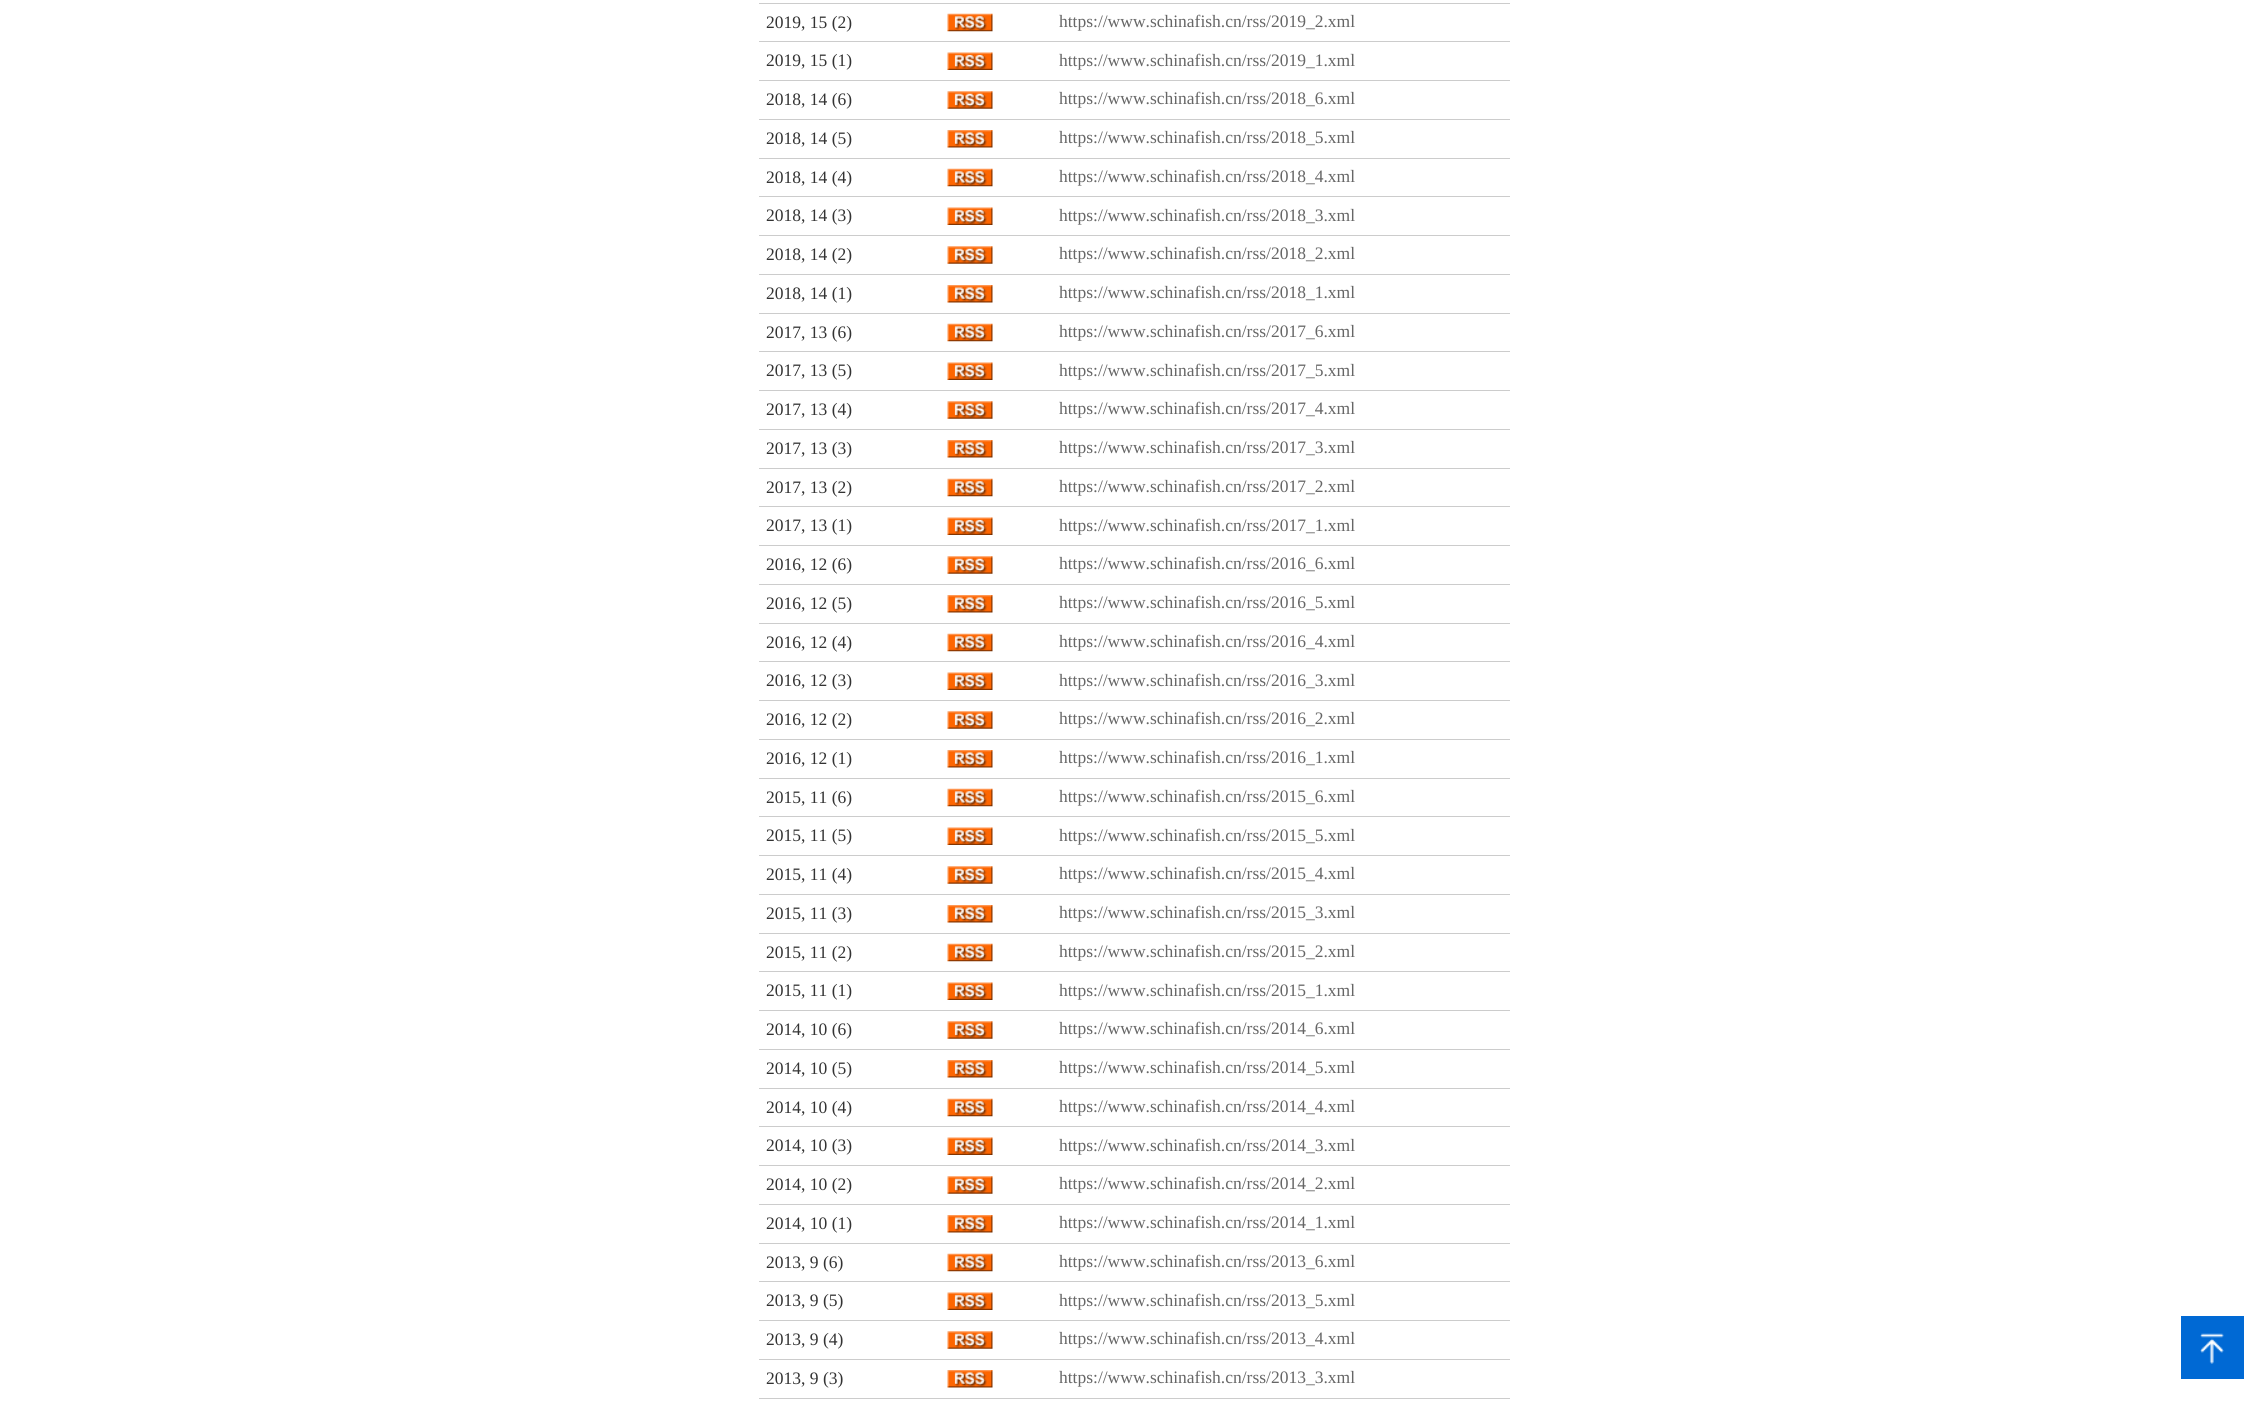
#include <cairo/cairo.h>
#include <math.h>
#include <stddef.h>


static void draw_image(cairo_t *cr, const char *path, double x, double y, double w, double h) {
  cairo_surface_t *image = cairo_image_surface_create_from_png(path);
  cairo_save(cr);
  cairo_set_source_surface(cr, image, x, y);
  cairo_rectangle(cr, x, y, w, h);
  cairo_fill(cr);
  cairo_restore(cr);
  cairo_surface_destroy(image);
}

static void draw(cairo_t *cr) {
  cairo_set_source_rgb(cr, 1, 1, 1);
  cairo_paint(cr);
  cairo_set_source_rgb(cr, 204 / 255.0, 204 / 255.0, 204 / 255.0);
  cairo_rectangle(cr, 759, 3, 751, 1);
  cairo_fill(cr);
  cairo_rectangle(cr, 759, 41, 751, 1);
  cairo_fill(cr);
  draw_image(cr, "images/1.png", 947, 13, 46, 19);
  cairo_rectangle(cr, 759, 80, 751, 1);
  cairo_fill(cr);
  draw_image(cr, "images/2.png", 947, 52, 46, 18);
  cairo_rectangle(cr, 759, 119, 751, 1);
  cairo_fill(cr);
  draw_image(cr, "images/3.png", 947, 91, 46, 18);
  cairo_rectangle(cr, 759, 158, 751, 1);
  cairo_fill(cr);
  draw_image(cr, "images/4.png", 947, 130, 46, 18);
  cairo_rectangle(cr, 759, 196, 751, 1);
  cairo_fill(cr);
  draw_image(cr, "images/1.png", 947, 168, 46, 19);
  cairo_rectangle(cr, 759, 235, 751, 1);
  cairo_fill(cr);
  draw_image(cr, "images/5.png", 947, 207, 46, 18);
  cairo_rectangle(cr, 759, 274, 751, 1);
  cairo_fill(cr);
  draw_image(cr, "images/3.png", 947, 246, 46, 18);
  cairo_rectangle(cr, 759, 313, 751, 1);
  cairo_fill(cr);
  draw_image(cr, "images/4.png", 947, 285, 46, 18);
  cairo_rectangle(cr, 759, 351, 751, 1);
  cairo_fill(cr);
  draw_image(cr, "images/1.png", 947, 323, 46, 19);
  cairo_rectangle(cr, 759, 390, 751, 1);
  cairo_fill(cr);
  draw_image(cr, "images/5.png", 947, 362, 46, 18);
  cairo_rectangle(cr, 759, 429, 751, 1);
  cairo_fill(cr);
  draw_image(cr, "images/3.png", 947, 401, 46, 18);
  cairo_rectangle(cr, 759, 468, 751, 1);
  cairo_fill(cr);
  draw_image(cr, "images/4.png", 947, 440, 46, 18);
  cairo_rectangle(cr, 759, 506, 751, 1);
  cairo_fill(cr);
  draw_image(cr, "images/1.png", 947, 478, 46, 19);
  cairo_rectangle(cr, 759, 545, 751, 1);
  cairo_fill(cr);
  draw_image(cr, "images/5.png", 947, 517, 46, 18);
  cairo_rectangle(cr, 759, 584, 751, 1);
  cairo_fill(cr);
  draw_image(cr, "images/3.png", 947, 556, 46, 18);
  cairo_rectangle(cr, 759, 623, 751, 1);
  cairo_fill(cr);
  draw_image(cr, "images/4.png", 947, 595, 46, 18);
  cairo_rectangle(cr, 759, 661, 751, 1);
  cairo_fill(cr);
  draw_image(cr, "images/1.png", 947, 633, 46, 19);
  cairo_rectangle(cr, 759, 700, 751, 1);
  cairo_fill(cr);
  draw_image(cr, "images/5.png", 947, 672, 46, 18);
  cairo_rectangle(cr, 759, 739, 751, 1);
  cairo_fill(cr);
  draw_image(cr, "images/3.png", 947, 711, 46, 18);
  cairo_rectangle(cr, 759, 778, 751, 1);
  cairo_fill(cr);
  draw_image(cr, "images/4.png", 947, 750, 46, 18);
  cairo_rectangle(cr, 759, 816, 751, 1);
  cairo_fill(cr);
  draw_image(cr, "images/1.png", 947, 788, 46, 19);
  cairo_rectangle(cr, 759, 855, 751, 1);
  cairo_fill(cr);
  draw_image(cr, "images/5.png", 947, 827, 46, 18);
  cairo_rectangle(cr, 759, 894, 751, 1);
  cairo_fill(cr);
  draw_image(cr, "images/3.png", 947, 866, 46, 18);
  cairo_rectangle(cr, 759, 933, 751, 1);
  cairo_fill(cr);
  draw_image(cr, "images/4.png", 947, 905, 46, 18);
  cairo_rectangle(cr, 759, 971, 751, 1);
  cairo_fill(cr);
  draw_image(cr, "images/1.png", 947, 943, 46, 19);
  cairo_rectangle(cr, 759, 1010, 751, 1);
  cairo_fill(cr);
  draw_image(cr, "images/5.png", 947, 982, 46, 18);
  cairo_rectangle(cr, 759, 1049, 751, 1);
  cairo_fill(cr);
  draw_image(cr, "images/3.png", 947, 1021, 46, 18);
  cairo_rectangle(cr, 759, 1088, 751, 1);
  cairo_fill(cr);
  draw_image(cr, "images/4.png", 947, 1060, 46, 18);
  cairo_rectangle(cr, 759, 1126, 751, 1);
  cairo_fill(cr);
  draw_image(cr, "images/1.png", 947, 1098, 46, 19);
  cairo_rectangle(cr, 759, 1165, 751, 1);
  cairo_fill(cr);
  draw_image(cr, "images/6.png", 947, 1137, 46, 18);
  cairo_rectangle(cr, 759, 1204, 751, 1);
  cairo_fill(cr);
  draw_image(cr, "images/3.png", 947, 1176, 46, 18);
  cairo_rectangle(cr, 759, 1243, 751, 1);
  cairo_fill(cr);
  draw_image(cr, "images/4.png", 947, 1215, 46, 18);
  cairo_rectangle(cr, 759, 1281, 751, 1);
  cairo_fill(cr);
  draw_image(cr, "images/1.png", 947, 1253, 46, 19);
  cairo_rectangle(cr, 759, 1320, 751, 1);
  cairo_fill(cr);
  draw_image(cr, "images/5.png", 947, 1292, 46, 18);
  cairo_rectangle(cr, 759, 1359, 751, 1);
  cairo_fill(cr);
  draw_image(cr, "images/7.png", 947, 1331, 46, 18);
  cairo_rectangle(cr, 759, 1398, 751, 1);
  cairo_fill(cr);
  draw_image(cr, "images/4.png", 947, 1370, 46, 18);
  cairo_set_source_rgb(cr, 0, 105 / 255.0, 212 / 255.0);
  cairo_rectangle(cr, 2181, 1316, 63, 63);
  cairo_fill(cr);
  draw_image(cr, "images/8.png", 2200, 1333, 24, 31);
  cairo_select_font_face(cr, "Liberation Serif", CAIRO_FONT_SLANT_NORMAL, CAIRO_FONT_WEIGHT_NORMAL);
  cairo_set_font_size(cr, 17.5);
  cairo_set_source_rgb(cr, 51 / 255.0, 51 / 255.0, 51 / 255.0);
  cairo_move_to(cr, 766, 28);
  cairo_show_text(cr, "2019, 15 (2)");
  cairo_set_source_rgb(cr, 102 / 255.0, 102 / 255.0, 102 / 255.0);
  cairo_move_to(cr, 1059, 27);
  cairo_show_text(cr, "https://www.schinafish.cn/rss/2019_2.xml");
  cairo_set_source_rgb(cr, 51 / 255.0, 51 / 255.0, 51 / 255.0);
  cairo_move_to(cr, 766, 66);
  cairo_show_text(cr, "2019, 15 (1)");
  cairo_set_source_rgb(cr, 102 / 255.0, 102 / 255.0, 102 / 255.0);
  cairo_move_to(cr, 1059, 66);
  cairo_show_text(cr, "https://www.schinafish.cn/rss/2019_1.xml");
  cairo_set_source_rgb(cr, 51 / 255.0, 51 / 255.0, 51 / 255.0);
  cairo_move_to(cr, 766, 105);
  cairo_show_text(cr, "2018, 14 (6)");
  cairo_set_source_rgb(cr, 102 / 255.0, 102 / 255.0, 102 / 255.0);
  cairo_move_to(cr, 1059, 104);
  cairo_show_text(cr, "https://www.schinafish.cn/rss/2018_6.xml");
  cairo_set_source_rgb(cr, 51 / 255.0, 51 / 255.0, 51 / 255.0);
  cairo_move_to(cr, 766, 144);
  cairo_show_text(cr, "2018, 14 (5)");
  cairo_set_source_rgb(cr, 102 / 255.0, 102 / 255.0, 102 / 255.0);
  cairo_move_to(cr, 1059, 143);
  cairo_show_text(cr, "https://www.schinafish.cn/rss/2018_5.xml");
  cairo_set_source_rgb(cr, 51 / 255.0, 51 / 255.0, 51 / 255.0);
  cairo_move_to(cr, 766, 183);
  cairo_show_text(cr, "2018, 14 (4)");
  cairo_set_source_rgb(cr, 102 / 255.0, 102 / 255.0, 102 / 255.0);
  cairo_move_to(cr, 1059, 182);
  cairo_show_text(cr, "https://www.schinafish.cn/rss/2018_4.xml");
  cairo_set_source_rgb(cr, 51 / 255.0, 51 / 255.0, 51 / 255.0);
  cairo_move_to(cr, 766, 221);
  cairo_show_text(cr, "2018, 14 (3)");
  cairo_set_source_rgb(cr, 102 / 255.0, 102 / 255.0, 102 / 255.0);
  cairo_move_to(cr, 1059, 221);
  cairo_show_text(cr, "https://www.schinafish.cn/rss/2018_3.xml");
  cairo_set_source_rgb(cr, 51 / 255.0, 51 / 255.0, 51 / 255.0);
  cairo_move_to(cr, 766, 260);
  cairo_show_text(cr, "2018, 14 (2)");
  cairo_set_source_rgb(cr, 102 / 255.0, 102 / 255.0, 102 / 255.0);
  cairo_move_to(cr, 1059, 259);
  cairo_show_text(cr, "https://www.schinafish.cn/rss/2018_2.xml");
  cairo_set_source_rgb(cr, 51 / 255.0, 51 / 255.0, 51 / 255.0);
  cairo_move_to(cr, 766, 299);
  cairo_show_text(cr, "2018, 14 (1)");
  cairo_set_source_rgb(cr, 102 / 255.0, 102 / 255.0, 102 / 255.0);
  cairo_move_to(cr, 1059, 298);
  cairo_show_text(cr, "https://www.schinafish.cn/rss/2018_1.xml");
  cairo_set_source_rgb(cr, 51 / 255.0, 51 / 255.0, 51 / 255.0);
  cairo_move_to(cr, 766, 338);
  cairo_show_text(cr, "2017, 13 (6)");
  cairo_set_source_rgb(cr, 102 / 255.0, 102 / 255.0, 102 / 255.0);
  cairo_move_to(cr, 1059, 337);
  cairo_show_text(cr, "https://www.schinafish.cn/rss/2017_6.xml");
  cairo_set_source_rgb(cr, 51 / 255.0, 51 / 255.0, 51 / 255.0);
  cairo_move_to(cr, 766, 376);
  cairo_show_text(cr, "2017, 13 (5)");
  cairo_set_source_rgb(cr, 102 / 255.0, 102 / 255.0, 102 / 255.0);
  cairo_move_to(cr, 1059, 376);
  cairo_show_text(cr, "https://www.schinafish.cn/rss/2017_5.xml");
  cairo_set_source_rgb(cr, 51 / 255.0, 51 / 255.0, 51 / 255.0);
  cairo_move_to(cr, 766, 415);
  cairo_show_text(cr, "2017, 13 (4)");
  cairo_set_source_rgb(cr, 102 / 255.0, 102 / 255.0, 102 / 255.0);
  cairo_move_to(cr, 1059, 414);
  cairo_show_text(cr, "https://www.schinafish.cn/rss/2017_4.xml");
  cairo_set_source_rgb(cr, 51 / 255.0, 51 / 255.0, 51 / 255.0);
  cairo_move_to(cr, 766, 454);
  cairo_show_text(cr, "2017, 13 (3)");
  cairo_set_source_rgb(cr, 102 / 255.0, 102 / 255.0, 102 / 255.0);
  cairo_move_to(cr, 1059, 453);
  cairo_show_text(cr, "https://www.schinafish.cn/rss/2017_3.xml");
  cairo_set_source_rgb(cr, 51 / 255.0, 51 / 255.0, 51 / 255.0);
  cairo_move_to(cr, 766, 493);
  cairo_show_text(cr, "2017, 13 (2)");
  cairo_set_source_rgb(cr, 102 / 255.0, 102 / 255.0, 102 / 255.0);
  cairo_move_to(cr, 1059, 492);
  cairo_show_text(cr, "https://www.schinafish.cn/rss/2017_2.xml");
  cairo_set_source_rgb(cr, 51 / 255.0, 51 / 255.0, 51 / 255.0);
  cairo_move_to(cr, 766, 531);
  cairo_show_text(cr, "2017, 13 (1)");
  cairo_set_source_rgb(cr, 102 / 255.0, 102 / 255.0, 102 / 255.0);
  cairo_move_to(cr, 1059, 531);
  cairo_show_text(cr, "https://www.schinafish.cn/rss/2017_1.xml");
  cairo_set_source_rgb(cr, 51 / 255.0, 51 / 255.0, 51 / 255.0);
  cairo_move_to(cr, 766, 570);
  cairo_show_text(cr, "2016, 12 (6)");
  cairo_set_source_rgb(cr, 102 / 255.0, 102 / 255.0, 102 / 255.0);
  cairo_move_to(cr, 1059, 569);
  cairo_show_text(cr, "https://www.schinafish.cn/rss/2016_6.xml");
  cairo_set_source_rgb(cr, 51 / 255.0, 51 / 255.0, 51 / 255.0);
  cairo_move_to(cr, 766, 609);
  cairo_show_text(cr, "2016, 12 (5)");
  cairo_set_source_rgb(cr, 102 / 255.0, 102 / 255.0, 102 / 255.0);
  cairo_move_to(cr, 1059, 608);
  cairo_show_text(cr, "https://www.schinafish.cn/rss/2016_5.xml");
  cairo_set_source_rgb(cr, 51 / 255.0, 51 / 255.0, 51 / 255.0);
  cairo_move_to(cr, 766, 648);
  cairo_show_text(cr, "2016, 12 (4)");
  cairo_set_source_rgb(cr, 102 / 255.0, 102 / 255.0, 102 / 255.0);
  cairo_move_to(cr, 1059, 647);
  cairo_show_text(cr, "https://www.schinafish.cn/rss/2016_4.xml");
  cairo_set_source_rgb(cr, 51 / 255.0, 51 / 255.0, 51 / 255.0);
  cairo_move_to(cr, 766, 686);
  cairo_show_text(cr, "2016, 12 (3)");
  cairo_set_source_rgb(cr, 102 / 255.0, 102 / 255.0, 102 / 255.0);
  cairo_move_to(cr, 1059, 686);
  cairo_show_text(cr, "https://www.schinafish.cn/rss/2016_3.xml");
  cairo_set_source_rgb(cr, 51 / 255.0, 51 / 255.0, 51 / 255.0);
  cairo_move_to(cr, 766, 725);
  cairo_show_text(cr, "2016, 12 (2)");
  cairo_set_source_rgb(cr, 102 / 255.0, 102 / 255.0, 102 / 255.0);
  cairo_move_to(cr, 1059, 724);
  cairo_show_text(cr, "https://www.schinafish.cn/rss/2016_2.xml");
  cairo_set_source_rgb(cr, 51 / 255.0, 51 / 255.0, 51 / 255.0);
  cairo_move_to(cr, 766, 764);
  cairo_show_text(cr, "2016, 12 (1)");
  cairo_set_source_rgb(cr, 102 / 255.0, 102 / 255.0, 102 / 255.0);
  cairo_move_to(cr, 1059, 763);
  cairo_show_text(cr, "https://www.schinafish.cn/rss/2016_1.xml");
  cairo_set_source_rgb(cr, 51 / 255.0, 51 / 255.0, 51 / 255.0);
  cairo_move_to(cr, 766, 803);
  cairo_show_text(cr, "2015, 11 (6)");
  cairo_set_source_rgb(cr, 102 / 255.0, 102 / 255.0, 102 / 255.0);
  cairo_move_to(cr, 1059, 802);
  cairo_show_text(cr, "https://www.schinafish.cn/rss/2015_6.xml");
  cairo_set_source_rgb(cr, 51 / 255.0, 51 / 255.0, 51 / 255.0);
  cairo_move_to(cr, 766, 841);
  cairo_show_text(cr, "2015, 11 (5)");
  cairo_set_source_rgb(cr, 102 / 255.0, 102 / 255.0, 102 / 255.0);
  cairo_move_to(cr, 1059, 841);
  cairo_show_text(cr, "https://www.schinafish.cn/rss/2015_5.xml");
  cairo_set_source_rgb(cr, 51 / 255.0, 51 / 255.0, 51 / 255.0);
  cairo_move_to(cr, 766, 880);
  cairo_show_text(cr, "2015, 11 (4)");
  cairo_set_source_rgb(cr, 102 / 255.0, 102 / 255.0, 102 / 255.0);
  cairo_move_to(cr, 1059, 879);
  cairo_show_text(cr, "https://www.schinafish.cn/rss/2015_4.xml");
  cairo_set_source_rgb(cr, 51 / 255.0, 51 / 255.0, 51 / 255.0);
  cairo_move_to(cr, 766, 919);
  cairo_show_text(cr, "2015, 11 (3)");
  cairo_set_source_rgb(cr, 102 / 255.0, 102 / 255.0, 102 / 255.0);
  cairo_move_to(cr, 1059, 918);
  cairo_show_text(cr, "https://www.schinafish.cn/rss/2015_3.xml");
  cairo_set_source_rgb(cr, 51 / 255.0, 51 / 255.0, 51 / 255.0);
  cairo_move_to(cr, 766, 958);
  cairo_show_text(cr, "2015, 11 (2)");
  cairo_set_source_rgb(cr, 102 / 255.0, 102 / 255.0, 102 / 255.0);
  cairo_move_to(cr, 1059, 957);
  cairo_show_text(cr, "https://www.schinafish.cn/rss/2015_2.xml");
  cairo_set_source_rgb(cr, 51 / 255.0, 51 / 255.0, 51 / 255.0);
  cairo_move_to(cr, 766, 996);
  cairo_show_text(cr, "2015, 11 (1)");
  cairo_set_source_rgb(cr, 102 / 255.0, 102 / 255.0, 102 / 255.0);
  cairo_move_to(cr, 1059, 996);
  cairo_show_text(cr, "https://www.schinafish.cn/rss/2015_1.xml");
  cairo_set_source_rgb(cr, 51 / 255.0, 51 / 255.0, 51 / 255.0);
  cairo_move_to(cr, 766, 1035);
  cairo_show_text(cr, "2014, 10 (6)");
  cairo_set_source_rgb(cr, 102 / 255.0, 102 / 255.0, 102 / 255.0);
  cairo_move_to(cr, 1059, 1034);
  cairo_show_text(cr, "https://www.schinafish.cn/rss/2014_6.xml");
  cairo_set_source_rgb(cr, 51 / 255.0, 51 / 255.0, 51 / 255.0);
  cairo_move_to(cr, 766, 1074);
  cairo_show_text(cr, "2014, 10 (5)");
  cairo_set_source_rgb(cr, 102 / 255.0, 102 / 255.0, 102 / 255.0);
  cairo_move_to(cr, 1059, 1073);
  cairo_show_text(cr, "https://www.schinafish.cn/rss/2014_5.xml");
  cairo_set_source_rgb(cr, 51 / 255.0, 51 / 255.0, 51 / 255.0);
  cairo_move_to(cr, 766, 1113);
  cairo_show_text(cr, "2014, 10 (4)");
  cairo_set_source_rgb(cr, 102 / 255.0, 102 / 255.0, 102 / 255.0);
  cairo_move_to(cr, 1059, 1112);
  cairo_show_text(cr, "https://www.schinafish.cn/rss/2014_4.xml");
  cairo_set_source_rgb(cr, 51 / 255.0, 51 / 255.0, 51 / 255.0);
  cairo_move_to(cr, 766, 1151);
  cairo_show_text(cr, "2014, 10 (3)");
  cairo_set_source_rgb(cr, 102 / 255.0, 102 / 255.0, 102 / 255.0);
  cairo_move_to(cr, 1059, 1151);
  cairo_show_text(cr, "https://www.schinafish.cn/rss/2014_3.xml");
  cairo_set_source_rgb(cr, 51 / 255.0, 51 / 255.0, 51 / 255.0);
  cairo_move_to(cr, 766, 1190);
  cairo_show_text(cr, "2014, 10 (2)");
  cairo_set_source_rgb(cr, 102 / 255.0, 102 / 255.0, 102 / 255.0);
  cairo_move_to(cr, 1059, 1189);
  cairo_show_text(cr, "https://www.schinafish.cn/rss/2014_2.xml");
  cairo_set_source_rgb(cr, 51 / 255.0, 51 / 255.0, 51 / 255.0);
  cairo_move_to(cr, 766, 1229);
  cairo_show_text(cr, "2014, 10 (1)");
  cairo_set_source_rgb(cr, 102 / 255.0, 102 / 255.0, 102 / 255.0);
  cairo_move_to(cr, 1059, 1228);
  cairo_show_text(cr, "https://www.schinafish.cn/rss/2014_1.xml");
  cairo_set_source_rgb(cr, 51 / 255.0, 51 / 255.0, 51 / 255.0);
  cairo_move_to(cr, 766, 1268);
  cairo_show_text(cr, "2013, 9 (6)");
  cairo_set_source_rgb(cr, 102 / 255.0, 102 / 255.0, 102 / 255.0);
  cairo_move_to(cr, 1059, 1267);
  cairo_show_text(cr, "https://www.schinafish.cn/rss/2013_6.xml");
  cairo_set_source_rgb(cr, 51 / 255.0, 51 / 255.0, 51 / 255.0);
  cairo_move_to(cr, 766, 1306);
  cairo_show_text(cr, "2013, 9 (5)");
  cairo_set_source_rgb(cr, 102 / 255.0, 102 / 255.0, 102 / 255.0);
  cairo_move_to(cr, 1059, 1306);
  cairo_show_text(cr, "https://www.schinafish.cn/rss/2013_5.xml");
  cairo_set_source_rgb(cr, 51 / 255.0, 51 / 255.0, 51 / 255.0);
  cairo_move_to(cr, 766, 1345);
  cairo_show_text(cr, "2013, 9 (4)");
  cairo_set_source_rgb(cr, 102 / 255.0, 102 / 255.0, 102 / 255.0);
  cairo_move_to(cr, 1059, 1344);
  cairo_show_text(cr, "https://www.schinafish.cn/rss/2013_4.xml");
  cairo_set_source_rgb(cr, 51 / 255.0, 51 / 255.0, 51 / 255.0);
  cairo_move_to(cr, 766, 1384);
  cairo_show_text(cr, "2013, 9 (3)");
  cairo_set_source_rgb(cr, 102 / 255.0, 102 / 255.0, 102 / 255.0);
  cairo_move_to(cr, 1059, 1383);
  cairo_show_text(cr, "https://www.schinafish.cn/rss/2013_3.xml");
}

int main(void) {
  cairo_surface_t *surface = cairo_image_surface_create(CAIRO_FORMAT_RGB24, 2268, 1403);
  cairo_t *cr = cairo_create(surface);
  cairo_font_options_t *options = cairo_font_options_create();
  cairo_font_options_set_hint_metrics(options, CAIRO_HINT_METRICS_OFF);
  cairo_font_options_set_hint_style(options, CAIRO_HINT_STYLE_NONE);
  cairo_set_font_options(cr, options);
  cairo_set_miter_limit(cr, 4);
  draw(cr);
  cairo_surface_write_to_png(surface, "out.png");
  cairo_font_options_destroy(options);
  cairo_destroy(cr);
  cairo_surface_destroy(surface);
  return 0;
}
